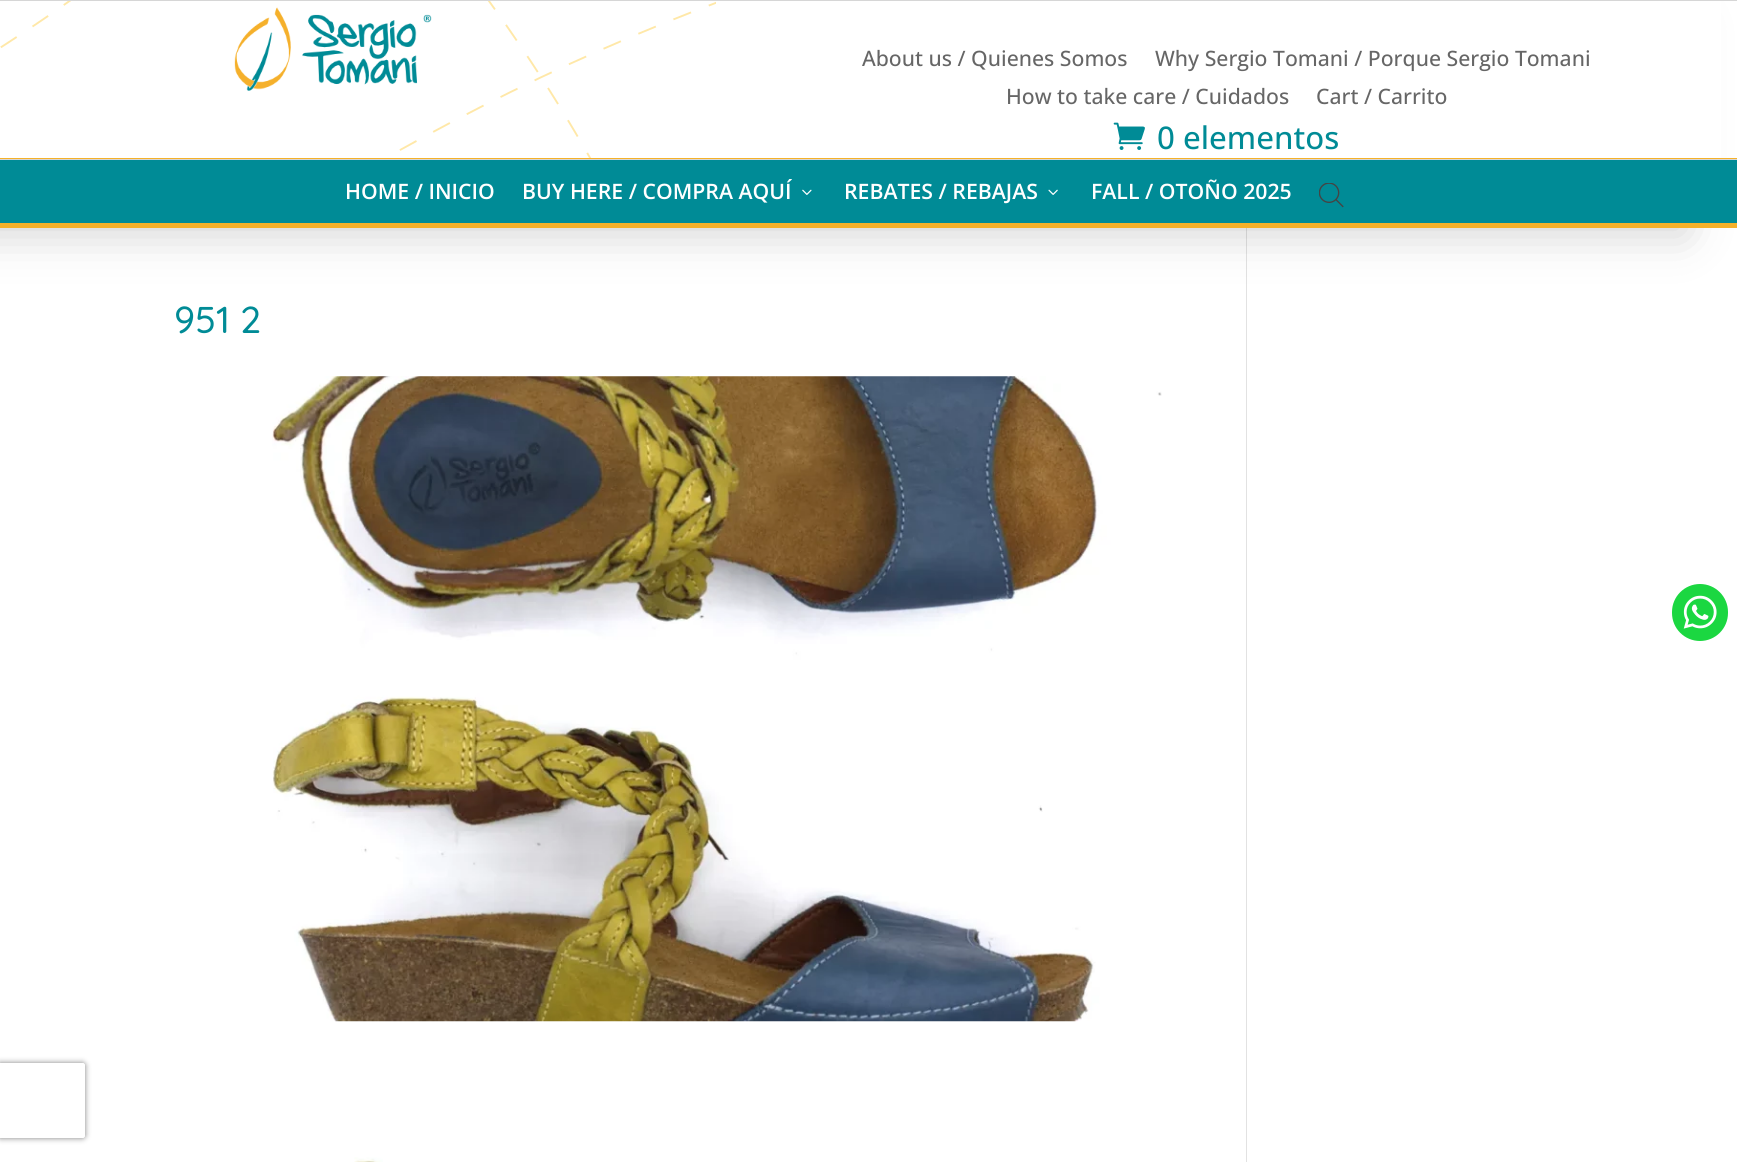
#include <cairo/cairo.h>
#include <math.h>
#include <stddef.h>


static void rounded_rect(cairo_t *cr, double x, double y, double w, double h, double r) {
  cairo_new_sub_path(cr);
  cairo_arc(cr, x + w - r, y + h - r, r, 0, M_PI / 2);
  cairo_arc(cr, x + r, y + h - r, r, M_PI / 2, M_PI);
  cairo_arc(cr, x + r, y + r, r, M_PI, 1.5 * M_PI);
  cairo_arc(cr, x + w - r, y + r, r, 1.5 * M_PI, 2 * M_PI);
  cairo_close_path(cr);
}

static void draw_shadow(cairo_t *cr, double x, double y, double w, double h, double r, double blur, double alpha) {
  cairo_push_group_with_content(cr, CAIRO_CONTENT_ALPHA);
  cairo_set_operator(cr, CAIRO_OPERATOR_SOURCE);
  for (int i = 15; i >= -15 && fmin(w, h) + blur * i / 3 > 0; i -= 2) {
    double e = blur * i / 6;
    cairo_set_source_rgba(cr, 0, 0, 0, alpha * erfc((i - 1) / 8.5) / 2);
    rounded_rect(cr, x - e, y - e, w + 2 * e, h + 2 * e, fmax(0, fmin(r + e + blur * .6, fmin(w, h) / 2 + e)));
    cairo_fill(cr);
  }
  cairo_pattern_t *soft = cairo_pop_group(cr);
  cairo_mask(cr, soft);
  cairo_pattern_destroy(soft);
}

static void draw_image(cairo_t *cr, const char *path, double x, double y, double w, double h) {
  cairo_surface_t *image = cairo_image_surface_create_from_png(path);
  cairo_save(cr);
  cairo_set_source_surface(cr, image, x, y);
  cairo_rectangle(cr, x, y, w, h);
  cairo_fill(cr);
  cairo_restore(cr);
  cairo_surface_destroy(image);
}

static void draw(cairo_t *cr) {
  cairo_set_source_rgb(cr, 1, 1, 1);
  cairo_paint(cr);
  cairo_set_source_rgb(cr, 226 / 255.0, 226 / 255.0, 226 / 255.0);
  cairo_rectangle(cr, 1246, 228, 1, 934);
  cairo_fill(cr);
  cairo_set_source_rgb(cr, 0, 0, 0);
  draw_shadow(cr, -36, 23, 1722, 212, 0, 22.5, 0.17);
  cairo_set_source_rgb(cr, 1, 1, 1);
  cairo_rectangle(cr, 0, 1, 716, 157);
  cairo_fill(cr);
  cairo_save(cr);
  cairo_rectangle(cr, 0, 0, 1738, 228);
  cairo_clip(cr);
  cairo_new_path(cr);
  cairo_move_to(cr, 56, 385);
  cairo_curve_to(cr, 56, 385, 890, -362.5, 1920, -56.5);
  cairo_set_source_rgb(cr, 1, 232 / 255.0, 168 / 255.0);
  cairo_set_line_width(cr, 1.9);
  cairo_set_dash(cr, (double[]){18.96, 18.96}, 2, 0);
  cairo_stroke(cr);
  cairo_restore(cr);
  cairo_new_path(cr);
  cairo_move_to(cr, 483, -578);
  cairo_curve_to(cr, 483, -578, 480.5, -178.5, -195.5, 158);
  cairo_set_source_rgb(cr, 1, 232 / 255.0, 168 / 255.0);
  cairo_set_line_width(cr, 1.9);
  cairo_set_dash(cr, (double[]){18.96, 18.96}, 2, 0);
  cairo_stroke(cr);
  cairo_save(cr);
  cairo_rectangle(cr, 0, 0, 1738, 228);
  cairo_clip(cr);
  cairo_new_path(cr);
  cairo_move_to(cr, -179.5, -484);
  cairo_curve_to(cr, -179.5, -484, 386.5, -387, 704.5, 394.5);
  cairo_stroke(cr);
  cairo_restore(cr);
  cairo_set_source_rgb(cr, 214 / 255.0, 214 / 255.0, 214 / 255.0);
  cairo_rectangle(cr, 0, 0, 1737, 1);
  cairo_fill(cr);
  cairo_set_source_rgb(cr, 245 / 255.0, 177 / 255.0, 41 / 255.0);
  cairo_rectangle(cr, 0, 158, 1737, 1);
  cairo_fill(cr);
  draw_image(cr, "images/1.png", 234, 7, 198, 84);
  cairo_set_source_rgb(cr, 1, 1, 1);
  cairo_rectangle(cr, 716, 1, 1005, 157);
  cairo_fill(cr);
  draw_image(cr, "images/2.png", 1113, 122, 32, 28);
  cairo_set_source_rgb(cr, 0, 139 / 255.0, 150 / 255.0);
  cairo_rectangle(cr, 0, 160, 1737, 63);
  cairo_fill(cr);
  cairo_set_source_rgb(cr, 214 / 255.0, 214 / 255.0, 214 / 255.0);
  cairo_rectangle(cr, 380, 159, 1357, 1);
  cairo_fill(cr);
  cairo_set_source_rgb(cr, 245 / 255.0, 177 / 255.0, 41 / 255.0);
  cairo_rectangle(cr, 0, 223, 1737, 5);
  cairo_fill(cr);
  draw_image(cr, "images/3.png", 802, 189, 10, 6);
  draw_image(cr, "images/4.png", 1048, 189, 10, 6);
  draw_image(cr, "images/5.png", 1319, 183, 25, 25);
  draw_image(cr, "images/6.png", 272, 376, 890, 646);
  draw_image(cr, "images/7.png", 354, 1157, 29, 5);
  cairo_set_source_rgb(cr, 27 / 255.0, 215 / 255.0, 65 / 255.0);
  rounded_rect(cr, 1670.5, 582.5, 59, 60, 29.5);
  cairo_fill_preserve(cr);
  cairo_set_source_rgb(cr, 1, 1, 1);
  cairo_set_line_width(cr, 3);
  cairo_set_dash(cr, NULL, 0, 0);
  cairo_stroke(cr);
  draw_image(cr, "images/8.png", 1683, 595, 34, 34);
  cairo_save(cr);
  cairo_set_fill_rule(cr, CAIRO_FILL_RULE_EVEN_ODD);
  cairo_new_path(cr);
  cairo_move_to(cr, 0, 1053);
  cairo_line_to(cr, 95, 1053);
  cairo_line_to(cr, 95, 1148);
  cairo_line_to(cr, 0, 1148);
  cairo_close_path(cr);
  cairo_move_to(cr, 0.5, 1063);
  cairo_line_to(cr, 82.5, 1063);
  cairo_curve_to(cr, 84, 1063, 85, 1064, 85, 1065.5);
  cairo_line_to(cr, 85, 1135.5);
  cairo_curve_to(cr, 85, 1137, 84, 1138, 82.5, 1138);
  cairo_line_to(cr, 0.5, 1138);
  cairo_curve_to(cr, -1, 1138, -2, 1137, -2, 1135.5);
  cairo_line_to(cr, -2, 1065.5);
  cairo_curve_to(cr, -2, 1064, -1, 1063, 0.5, 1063);
  cairo_close_path(cr);
  cairo_clip(cr);
  cairo_set_source_rgb(cr, 128 / 255.0, 128 / 255.0, 128 / 255.0);
  draw_shadow(cr, -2, 1063, 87, 75, 2.5, 3, 1);
  cairo_restore(cr);
  cairo_select_font_face(cr, "Open Sans Medium", CAIRO_FONT_SLANT_NORMAL, CAIRO_FONT_WEIGHT_NORMAL);
  cairo_set_font_size(cr, 21.25);
  cairo_set_source_rgb(cr, 102 / 255.0, 102 / 255.0, 102 / 255.0);
  cairo_move_to(cr, 862, 66);
  cairo_show_text(cr, "About us / Quienes Somos");
  cairo_move_to(cr, 1155, 66);
  cairo_show_text(cr, "Why Sergio Tomani / Porque Sergio Tomani");
  cairo_move_to(cr, 1006, 104);
  cairo_show_text(cr, "How to take care / Cuidados");
  cairo_move_to(cr, 1316, 104);
  cairo_show_text(cr, "Cart / Carrito");
  cairo_set_font_size(cr, 31.25);
  cairo_set_source_rgb(cr, 0, 139 / 255.0, 150 / 255.0);
  cairo_move_to(cr, 1157, 149);
  cairo_show_text(cr, "0 elementos");
  cairo_select_font_face(cr, "Open Sans SemiBold", CAIRO_FONT_SLANT_NORMAL, CAIRO_FONT_WEIGHT_NORMAL);
  cairo_set_font_size(cr, 21.25);
  cairo_set_source_rgb(cr, 1, 1, 1);
  cairo_move_to(cr, 345, 199);
  cairo_show_text(cr, "HOME / INICIO");
  cairo_move_to(cr, 522, 199);
  cairo_show_text(cr, "BUY HERE / COMPRA AQUÍ");
  cairo_move_to(cr, 844, 199);
  cairo_show_text(cr, "REBATES / REBAJAS");
  cairo_move_to(cr, 1091, 199);
  cairo_show_text(cr, "FALL / OTOÑO 2025");
  cairo_select_font_face(cr, "Quicksand Medium", CAIRO_FONT_SLANT_NORMAL, CAIRO_FONT_WEIGHT_NORMAL);
  cairo_set_font_size(cr, 37.5);
  cairo_set_source_rgb(cr, 0, 139 / 255.0, 150 / 255.0);
  cairo_move_to(cr, 174, 333);
  cairo_show_text(cr, "951 2");
}

int main(void) {
  cairo_surface_t *surface = cairo_image_surface_create(CAIRO_FORMAT_RGB24, 1737, 1162);
  cairo_t *cr = cairo_create(surface);
  cairo_font_options_t *options = cairo_font_options_create();
  cairo_font_options_set_hint_metrics(options, CAIRO_HINT_METRICS_OFF);
  cairo_font_options_set_hint_style(options, CAIRO_HINT_STYLE_NONE);
  cairo_set_font_options(cr, options);
  cairo_set_miter_limit(cr, 4);
  draw(cr);
  cairo_surface_write_to_png(surface, "out.png");
  cairo_font_options_destroy(options);
  cairo_destroy(cr);
  cairo_surface_destroy(surface);
  return 0;
}
